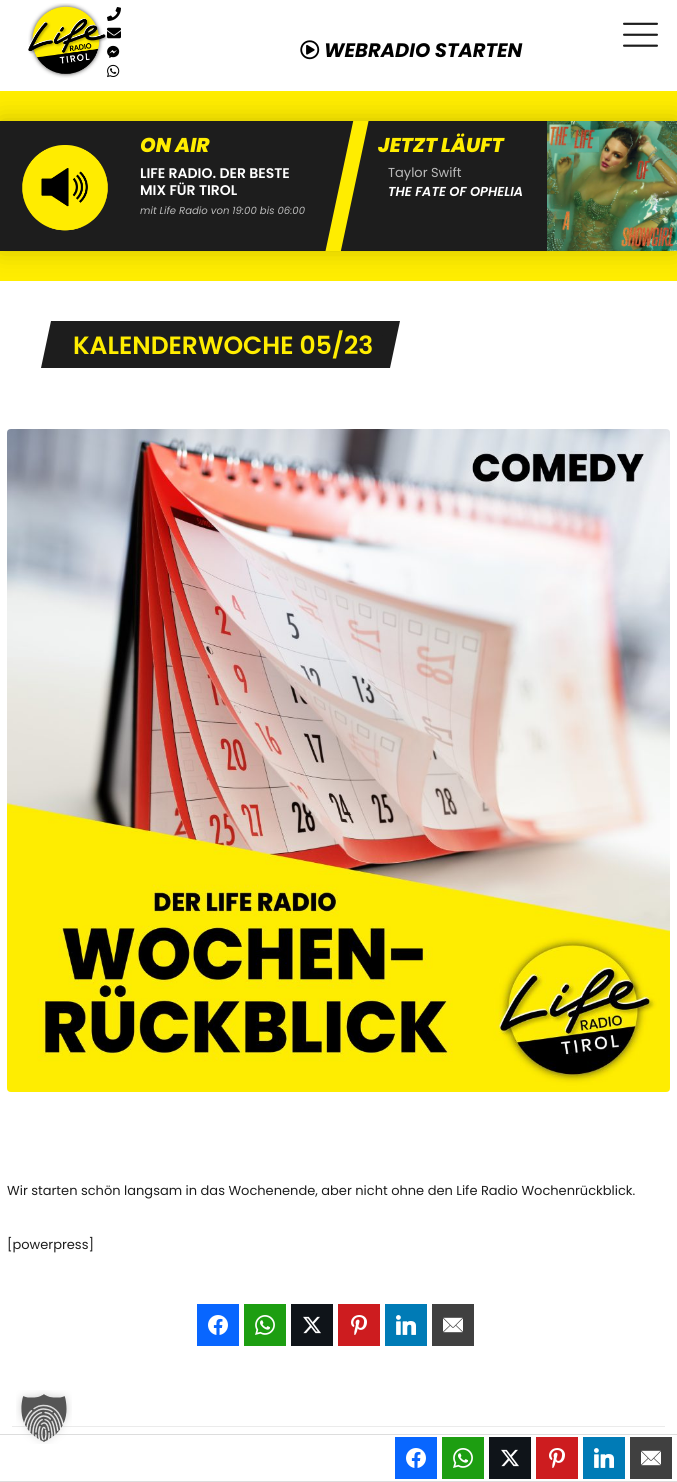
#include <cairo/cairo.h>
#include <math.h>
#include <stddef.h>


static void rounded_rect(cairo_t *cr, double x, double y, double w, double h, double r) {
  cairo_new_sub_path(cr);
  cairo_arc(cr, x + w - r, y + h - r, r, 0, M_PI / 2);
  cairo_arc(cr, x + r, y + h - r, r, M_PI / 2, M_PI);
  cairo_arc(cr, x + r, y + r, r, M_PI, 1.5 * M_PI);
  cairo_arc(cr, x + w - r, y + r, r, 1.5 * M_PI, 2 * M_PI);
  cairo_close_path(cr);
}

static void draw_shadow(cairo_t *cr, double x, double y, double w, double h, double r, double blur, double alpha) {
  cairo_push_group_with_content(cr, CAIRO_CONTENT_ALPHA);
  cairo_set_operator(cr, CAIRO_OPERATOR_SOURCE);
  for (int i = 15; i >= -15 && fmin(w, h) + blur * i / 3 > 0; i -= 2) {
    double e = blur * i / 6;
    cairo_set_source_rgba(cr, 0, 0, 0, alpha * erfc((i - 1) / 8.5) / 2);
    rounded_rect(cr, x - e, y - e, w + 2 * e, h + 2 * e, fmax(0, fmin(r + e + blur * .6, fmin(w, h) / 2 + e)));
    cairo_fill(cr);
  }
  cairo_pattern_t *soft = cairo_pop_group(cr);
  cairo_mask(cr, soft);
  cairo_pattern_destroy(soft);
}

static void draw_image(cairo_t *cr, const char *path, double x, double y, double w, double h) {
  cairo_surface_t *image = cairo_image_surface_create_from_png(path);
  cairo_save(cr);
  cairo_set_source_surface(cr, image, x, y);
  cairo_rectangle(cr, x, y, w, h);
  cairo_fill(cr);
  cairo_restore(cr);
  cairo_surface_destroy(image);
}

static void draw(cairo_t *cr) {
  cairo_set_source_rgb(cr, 1, 1, 1);
  cairo_paint(cr);
  draw_image(cr, "images/1.png", 28, 3, 80, 75);
  draw_image(cr, "images/2.png", 107, 7, 14, 14);
  draw_image(cr, "images/3.png", 107, 27, 14, 12);
  draw_image(cr, "images/4.png", 107, 45, 13, 13);
  draw_image(cr, "images/5.png", 107, 64, 13, 14);
  draw_image(cr, "images/6.png", 623, 22, 35, 25);
  draw_image(cr, "images/7.png", 300, 40, 20, 20);
  cairo_set_source_rgb(cr, 1, 237 / 255.0, 0);
  cairo_rectangle(cr, 0, 91, 677, 190);
  cairo_fill(cr);
  cairo_set_source_rgb(cr, 0, 0, 0);
  draw_shadow(cr, 0, 120, 677, 130, 0, 12.5, 0.2);
  cairo_set_source_rgb(cr, 29 / 255.0, 29 / 255.0, 29 / 255.0);
  cairo_rectangle(cr, 0, 121, 547, 130);
  cairo_fill(cr);
  draw_image(cr, "images/8.png", 22, 145, 86, 86);
  draw_image(cr, "images/9.png", 325, 121, 44, 130);
  draw_image(cr, "images/10.png", 547, 121, 130, 130);
  cairo_new_path(cr);
  cairo_move_to(cr, 65, 321);
  cairo_line_to(cr, 400, 321);
  cairo_line_to(cr, 390, 368);
  cairo_line_to(cr, 55, 368);
  cairo_close_path(cr);
  cairo_fill(cr);
  cairo_new_path(cr);
  cairo_move_to(cr, 51, 321);
  cairo_line_to(cr, 386, 321);
  cairo_line_to(cr, 376, 368);
  cairo_line_to(cr, 41, 368);
  cairo_close_path(cr);
  cairo_fill(cr);
  draw_image(cr, "images/11.png", 7, 429, 663, 663);
  cairo_set_source_rgb(cr, 8 / 255.0, 102 / 255.0, 1);
  cairo_rectangle(cr, 197, 1304, 42, 42);
  cairo_fill(cr);
  draw_image(cr, "images/12.png", 208, 1315, 20, 20);
  cairo_set_source_rgb(cr, 29 / 255.0, 158 / 255.0, 17 / 255.0);
  cairo_rectangle(cr, 244, 1304, 42, 42);
  cairo_fill(cr);
  draw_image(cr, "images/13.png", 255, 1315, 20, 20);
  cairo_set_source_rgb(cr, 15 / 255.0, 20 / 255.0, 25 / 255.0);
  cairo_rectangle(cr, 291, 1304, 42, 42);
  cairo_fill(cr);
  draw_image(cr, "images/14.png", 303, 1316, 18, 18);
  cairo_set_source_rgb(cr, 205 / 255.0, 28 / 255.0, 31 / 255.0);
  cairo_rectangle(cr, 338, 1304, 42, 42);
  cairo_fill(cr);
  draw_image(cr, "images/15.png", 351, 1315, 16, 20);
  cairo_set_source_rgb(cr, 0, 123 / 255.0, 182 / 255.0);
  cairo_rectangle(cr, 385, 1304, 42, 42);
  cairo_fill(cr);
  draw_image(cr, "images/16.png", 396, 1315, 20, 20);
  cairo_set_source_rgb(cr, 64 / 255.0, 64 / 255.0, 64 / 255.0);
  cairo_rectangle(cr, 432, 1304, 42, 42);
  cairo_fill(cr);
  draw_image(cr, "images/17.png", 443, 1317, 20, 16);
  cairo_set_source_rgb(cr, 235 / 255.0, 235 / 255.0, 235 / 255.0);
  cairo_rectangle(cr, 12, 1426, 653, 1);
  cairo_fill(cr);
  cairo_set_source_rgb(cr, 221 / 255.0, 221 / 255.0, 221 / 255.0);
  cairo_rectangle(cr, 0, 1434, 677, 1);
  cairo_fill(cr);
  draw_image(cr, "images/18.png", 16, 1390, 56, 54);
  cairo_rectangle(cr, 0, 1481, 677, 1);
  cairo_fill(cr);
  cairo_set_source_rgb(cr, 8 / 255.0, 102 / 255.0, 1);
  cairo_rectangle(cr, 395, 1437, 42, 42);
  cairo_fill(cr);
  draw_image(cr, "images/12.png", 406, 1448, 20, 20);
  cairo_set_source_rgb(cr, 29 / 255.0, 158 / 255.0, 17 / 255.0);
  cairo_rectangle(cr, 442, 1437, 42, 42);
  cairo_fill(cr);
  draw_image(cr, "images/13.png", 453, 1448, 20, 20);
  cairo_set_source_rgb(cr, 15 / 255.0, 20 / 255.0, 25 / 255.0);
  cairo_rectangle(cr, 489, 1437, 42, 42);
  cairo_fill(cr);
  draw_image(cr, "images/14.png", 501, 1449, 18, 18);
  cairo_set_source_rgb(cr, 205 / 255.0, 28 / 255.0, 31 / 255.0);
  cairo_rectangle(cr, 536, 1437, 42, 42);
  cairo_fill(cr);
  draw_image(cr, "images/15.png", 549, 1448, 16, 20);
  cairo_set_source_rgb(cr, 0, 123 / 255.0, 182 / 255.0);
  cairo_rectangle(cr, 583, 1437, 42, 42);
  cairo_fill(cr);
  draw_image(cr, "images/16.png", 594, 1448, 20, 20);
  cairo_set_source_rgb(cr, 64 / 255.0, 64 / 255.0, 64 / 255.0);
  cairo_rectangle(cr, 630, 1437, 42, 42);
  cairo_fill(cr);
  draw_image(cr, "images/17.png", 641, 1450, 20, 16);
  cairo_select_font_face(cr, "Poppins", CAIRO_FONT_SLANT_ITALIC, CAIRO_FONT_WEIGHT_BOLD);
  cairo_set_font_size(cr, 19.5);
  cairo_set_source_rgb(cr, 0, 0, 0);
  cairo_move_to(cr, 324, 57);
  cairo_show_text(cr, "WEBRADIO STARTEN");
  cairo_select_font_face(cr, "Poppins ExtraBold", CAIRO_FONT_SLANT_ITALIC, CAIRO_FONT_WEIGHT_NORMAL);
  cairo_set_font_size(cr, 20);
  cairo_set_source_rgb(cr, 1, 237 / 255.0, 0);
  cairo_move_to(cr, 140, 152);
  cairo_show_text(cr, "ON AIR");
  cairo_select_font_face(cr, "Poppins SemiBold", CAIRO_FONT_SLANT_NORMAL, CAIRO_FONT_WEIGHT_NORMAL);
  cairo_set_font_size(cr, 14);
  cairo_set_source_rgb(cr, 1, 1, 1);
  cairo_move_to(cr, 140, 178);
  cairo_show_text(cr, "LIFE RADIO. DER BESTE");
  cairo_move_to(cr, 140, 195);
  cairo_show_text(cr, "MIX FÜR TIROL");
  cairo_select_font_face(cr, "Poppins", CAIRO_FONT_SLANT_ITALIC, CAIRO_FONT_WEIGHT_NORMAL);
  cairo_set_font_size(cr, 10.1);
  cairo_set_source_rgb(cr, 187 / 255.0, 187 / 255.0, 187 / 255.0);
  cairo_move_to(cr, 140, 214);
  cairo_show_text(cr, "mit Life Radio von 19:00 bis 06:00");
  cairo_select_font_face(cr, "Poppins ExtraBold", CAIRO_FONT_SLANT_ITALIC, CAIRO_FONT_WEIGHT_NORMAL);
  cairo_set_font_size(cr, 20);
  cairo_set_source_rgb(cr, 1, 237 / 255.0, 0);
  cairo_move_to(cr, 378, 152);
  cairo_show_text(cr, "JETZT LÄUFT");
  cairo_select_font_face(cr, "Poppins", CAIRO_FONT_SLANT_NORMAL, CAIRO_FONT_WEIGHT_NORMAL);
  cairo_set_font_size(cr, 13);
  cairo_set_source_rgb(cr, 187 / 255.0, 187 / 255.0, 187 / 255.0);
  cairo_move_to(cr, 388, 177);
  cairo_show_text(cr, "Taylor Swift");
  cairo_select_font_face(cr, "Poppins SemiBold", CAIRO_FONT_SLANT_ITALIC, CAIRO_FONT_WEIGHT_NORMAL);
  cairo_set_source_rgb(cr, 1, 1, 1);
  cairo_move_to(cr, 388, 196);
  cairo_show_text(cr, "THE FATE OF OPHELIA");
  cairo_select_font_face(cr, "Poppins SemiBold", CAIRO_FONT_SLANT_NORMAL, CAIRO_FONT_WEIGHT_NORMAL);
  cairo_set_font_size(cr, 25);
  cairo_set_source_rgb(cr, 1, 237 / 255.0, 0);
  cairo_move_to(cr, 73, 354);
  cairo_show_text(cr, "KALENDERWOCHE 05/23");
  cairo_select_font_face(cr, "Poppins", CAIRO_FONT_SLANT_NORMAL, CAIRO_FONT_WEIGHT_NORMAL);
  cairo_set_font_size(cr, 13);
  cairo_set_source_rgb(cr, 29 / 255.0, 29 / 255.0, 29 / 255.0);
  cairo_move_to(cr, 7, 1195);
  cairo_show_text(cr, "Wir starten schön langsam in das Wochenende, aber nicht ohne den Life Radio Wochenrückblick.");
  cairo_move_to(cr, 7, 1249);
  cairo_show_text(cr, "[powerpress]");
}

int main(void) {
  cairo_surface_t *surface = cairo_image_surface_create(CAIRO_FORMAT_RGB24, 677, 1482);
  cairo_t *cr = cairo_create(surface);
  cairo_font_options_t *options = cairo_font_options_create();
  cairo_font_options_set_hint_metrics(options, CAIRO_HINT_METRICS_OFF);
  cairo_font_options_set_hint_style(options, CAIRO_HINT_STYLE_NONE);
  cairo_set_font_options(cr, options);
  cairo_set_miter_limit(cr, 4);
  draw(cr);
  cairo_surface_write_to_png(surface, "out.png");
  cairo_font_options_destroy(options);
  cairo_destroy(cr);
  cairo_surface_destroy(surface);
  return 0;
}
